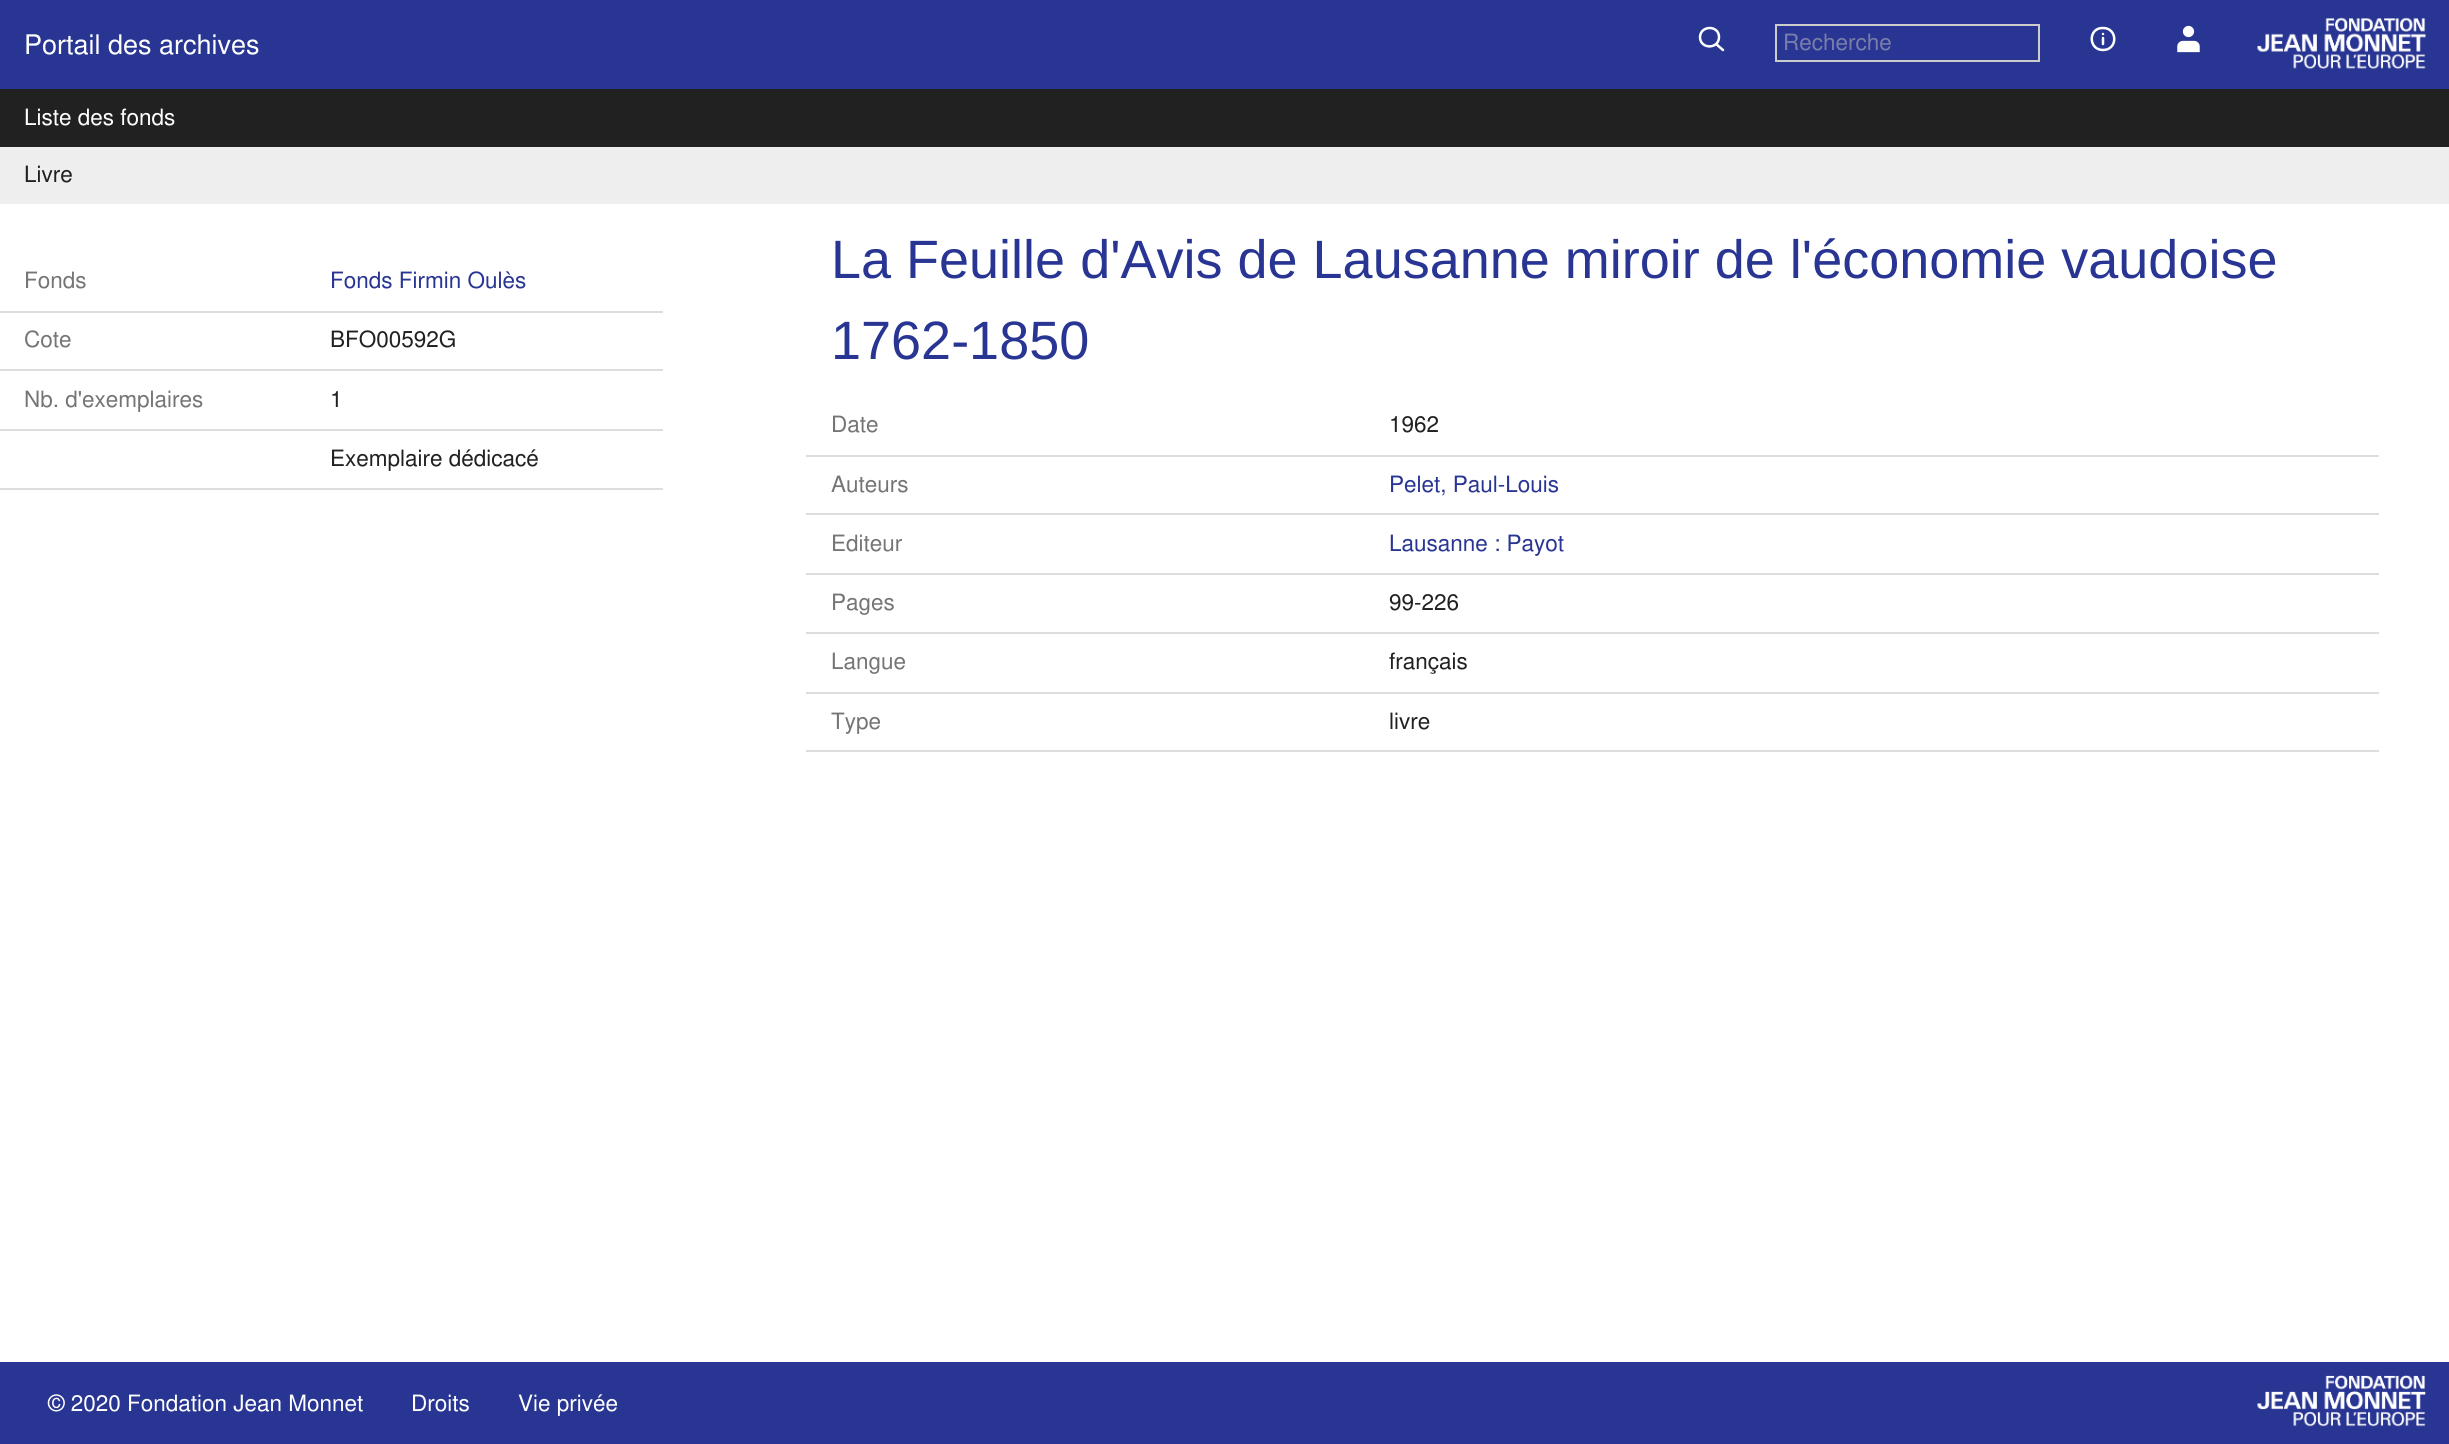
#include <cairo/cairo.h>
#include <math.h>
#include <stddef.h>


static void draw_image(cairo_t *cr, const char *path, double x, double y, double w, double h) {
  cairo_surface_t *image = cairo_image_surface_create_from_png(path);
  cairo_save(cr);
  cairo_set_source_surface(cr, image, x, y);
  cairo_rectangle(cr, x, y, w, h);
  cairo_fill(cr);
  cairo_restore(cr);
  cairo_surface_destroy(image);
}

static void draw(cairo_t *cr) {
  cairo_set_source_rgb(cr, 1, 1, 1);
  cairo_paint(cr);
  cairo_set_source_rgb(cr, 40 / 255.0, 53 / 255.0, 147 / 255.0);
  cairo_rectangle(cr, 0, 0, 2449, 89);
  cairo_fill(cr);
  cairo_new_path(cr);
  cairo_move_to(cr, 1716, 44);
  cairo_line_to(cr, 1723, 50);
  cairo_move_to(cr, 1719, 37);
  cairo_curve_to(cr, 1719, 49.5, 1700, 49.5, 1700, 37);
  cairo_curve_to(cr, 1700.5, 25, 1719, 25, 1719, 37);
  cairo_close_path(cr);
  cairo_set_source_rgb(cr, 1, 1, 1);
  cairo_set_line_width(cr, 2.5);
  cairo_set_line_cap(cr, CAIRO_LINE_CAP_ROUND);
  cairo_set_line_join(cr, CAIRO_LINE_JOIN_ROUND);
  cairo_stroke(cr);
  cairo_rectangle(cr, 1776, 25, 263, 36);
  cairo_set_source_rgb(cr, 204 / 255.0, 204 / 255.0, 204 / 255.0);
  cairo_set_line_width(cr, 2);
  cairo_set_line_cap(cr, CAIRO_LINE_CAP_BUTT);
  cairo_set_line_join(cr, CAIRO_LINE_JOIN_MITER);
  cairo_stroke(cr);
  cairo_new_path(cr);
  cairo_move_to(cr, 2103, 38);
  cairo_line_to(cr, 2103, 44);
  cairo_move_to(cr, 2103, 50);
  cairo_curve_to(cr, 2088, 50, 2088, 27.5, 2103, 28);
  cairo_curve_to(cr, 2118, 28, 2118, 50, 2103, 50);
  cairo_close_path(cr);
  cairo_move_to(cr, 2103, 34);
  cairo_line_to(cr, 2103, 34);
  cairo_close_path(cr);
  cairo_set_source_rgb(cr, 1, 1, 1);
  cairo_set_line_width(cr, 2.5);
  cairo_set_line_cap(cr, CAIRO_LINE_CAP_ROUND);
  cairo_set_line_join(cr, CAIRO_LINE_JOIN_ROUND);
  cairo_stroke(cr);
  draw_image(cr, "images/1.png", 2177, 25, 23, 28);
  draw_image(cr, "images/2.png", 2257, 17, 169, 52);
  cairo_set_source_rgb(cr, 33 / 255.0, 33 / 255.0, 33 / 255.0);
  cairo_rectangle(cr, 0, 89, 2449, 58);
  cairo_fill(cr);
  cairo_set_source_rgb(cr, 238 / 255.0, 238 / 255.0, 238 / 255.0);
  cairo_rectangle(cr, 0, 147, 2449, 57);
  cairo_fill(cr);
  cairo_set_source_rgb(cr, 221 / 255.0, 221 / 255.0, 221 / 255.0);
  cairo_rectangle(cr, 0, 311, 663, 2);
  cairo_fill(cr);
  cairo_rectangle(cr, 0, 369, 663, 2);
  cairo_fill(cr);
  cairo_rectangle(cr, 0, 429, 663, 2);
  cairo_fill(cr);
  cairo_rectangle(cr, 0, 488, 663, 2);
  cairo_fill(cr);
  cairo_rectangle(cr, 806, 455, 1573, 2);
  cairo_fill(cr);
  cairo_rectangle(cr, 806, 513, 1573, 2);
  cairo_fill(cr);
  cairo_rectangle(cr, 806, 573, 1573, 2);
  cairo_fill(cr);
  cairo_rectangle(cr, 806, 632, 1573, 2);
  cairo_fill(cr);
  cairo_rectangle(cr, 806, 692, 1573, 2);
  cairo_fill(cr);
  cairo_rectangle(cr, 806, 750, 1573, 2);
  cairo_fill(cr);
  cairo_set_source_rgb(cr, 40 / 255.0, 53 / 255.0, 147 / 255.0);
  cairo_rectangle(cr, 0, 1362, 2449, 82);
  cairo_fill(cr);
  draw_image(cr, "images/3.png", 2257, 1375, 169, 52);
  cairo_select_font_face(cr, "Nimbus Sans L", CAIRO_FONT_SLANT_NORMAL, CAIRO_FONT_WEIGHT_NORMAL);
  cairo_set_font_size(cr, 27);
  cairo_set_source_rgb(cr, 1, 1, 1);
  cairo_move_to(cr, 24, 54);
  cairo_show_text(cr, "Portail des archives");
  cairo_set_font_size(cr, 22.5);
  cairo_set_source_rgb(cr, 120 / 255.0, 126 / 255.0, 170 / 255.0);
  cairo_move_to(cr, 1783, 50);
  cairo_show_text(cr, "Recherche");
  cairo_set_source_rgb(cr, 1, 1, 1);
  cairo_move_to(cr, 24, 125);
  cairo_show_text(cr, "Liste des fonds");
  cairo_set_source_rgb(cr, 33 / 255.0, 33 / 255.0, 33 / 255.0);
  cairo_move_to(cr, 24, 182);
  cairo_show_text(cr, "Livre");
  cairo_set_source_rgb(cr, 117 / 255.0, 117 / 255.0, 117 / 255.0);
  cairo_move_to(cr, 24, 288);
  cairo_show_text(cr, "Fonds");
  cairo_set_source_rgb(cr, 40 / 255.0, 53 / 255.0, 147 / 255.0);
  cairo_move_to(cr, 330, 288);
  cairo_show_text(cr, "Fonds Firmin Oulès");
  cairo_set_source_rgb(cr, 117 / 255.0, 117 / 255.0, 117 / 255.0);
  cairo_move_to(cr, 24, 347);
  cairo_show_text(cr, "Cote");
  cairo_set_source_rgb(cr, 33 / 255.0, 33 / 255.0, 33 / 255.0);
  cairo_move_to(cr, 330, 347);
  cairo_show_text(cr, "BFO00592G");
  cairo_set_source_rgb(cr, 117 / 255.0, 117 / 255.0, 117 / 255.0);
  cairo_move_to(cr, 24, 407);
  cairo_show_text(cr, "Nb. d'exemplaires");
  cairo_set_source_rgb(cr, 33 / 255.0, 33 / 255.0, 33 / 255.0);
  cairo_move_to(cr, 330, 407);
  cairo_show_text(cr, "1");
  cairo_move_to(cr, 330, 466);
  cairo_show_text(cr, "Exemplaire dédicacé");
  cairo_select_font_face(cr, "Liberation Sans", CAIRO_FONT_SLANT_NORMAL, CAIRO_FONT_WEIGHT_NORMAL);
  cairo_set_font_size(cr, 54);
  cairo_set_source_rgb(cr, 40 / 255.0, 53 / 255.0, 147 / 255.0);
  cairo_move_to(cr, 831, 278);
  cairo_show_text(cr, "La Feuille d'Avis de Lausanne miroir de l'économie vaudoise");
  cairo_move_to(cr, 831, 359);
  cairo_show_text(cr, "1762-1850");
  cairo_select_font_face(cr, "Nimbus Sans L", CAIRO_FONT_SLANT_NORMAL, CAIRO_FONT_WEIGHT_NORMAL);
  cairo_set_font_size(cr, 22.5);
  cairo_set_source_rgb(cr, 117 / 255.0, 117 / 255.0, 117 / 255.0);
  cairo_move_to(cr, 831, 432);
  cairo_show_text(cr, "Date");
  cairo_set_source_rgb(cr, 33 / 255.0, 33 / 255.0, 33 / 255.0);
  cairo_move_to(cr, 1389, 432);
  cairo_show_text(cr, "1962");
  cairo_set_source_rgb(cr, 117 / 255.0, 117 / 255.0, 117 / 255.0);
  cairo_move_to(cr, 831, 492);
  cairo_show_text(cr, "Auteurs");
  cairo_set_source_rgb(cr, 40 / 255.0, 53 / 255.0, 147 / 255.0);
  cairo_move_to(cr, 1389, 492);
  cairo_show_text(cr, "Pelet, Paul-Louis");
  cairo_set_source_rgb(cr, 117 / 255.0, 117 / 255.0, 117 / 255.0);
  cairo_move_to(cr, 831, 551);
  cairo_show_text(cr, "Editeur");
  cairo_set_source_rgb(cr, 40 / 255.0, 53 / 255.0, 147 / 255.0);
  cairo_move_to(cr, 1389, 551);
  cairo_show_text(cr, "Lausanne : Payot");
  cairo_set_source_rgb(cr, 117 / 255.0, 117 / 255.0, 117 / 255.0);
  cairo_move_to(cr, 831, 610);
  cairo_show_text(cr, "Pages");
  cairo_set_source_rgb(cr, 33 / 255.0, 33 / 255.0, 33 / 255.0);
  cairo_move_to(cr, 1389, 610);
  cairo_show_text(cr, "99-226");
  cairo_set_source_rgb(cr, 117 / 255.0, 117 / 255.0, 117 / 255.0);
  cairo_move_to(cr, 831, 669);
  cairo_show_text(cr, "Langue");
  cairo_set_source_rgb(cr, 33 / 255.0, 33 / 255.0, 33 / 255.0);
  cairo_move_to(cr, 1389, 669);
  cairo_show_text(cr, "français");
  cairo_set_source_rgb(cr, 117 / 255.0, 117 / 255.0, 117 / 255.0);
  cairo_move_to(cr, 831, 729);
  cairo_show_text(cr, "Type");
  cairo_set_source_rgb(cr, 33 / 255.0, 33 / 255.0, 33 / 255.0);
  cairo_move_to(cr, 1389, 729);
  cairo_show_text(cr, "livre");
  cairo_set_source_rgb(cr, 1, 1, 1);
  cairo_move_to(cr, 48, 1411);
  cairo_show_text(cr, "© 2020 Fondation Jean Monnet");
  cairo_move_to(cr, 411, 1411);
  cairo_show_text(cr, "Droits");
  cairo_move_to(cr, 518, 1411);
  cairo_show_text(cr, "Vie privée");
}

int main(void) {
  cairo_surface_t *surface = cairo_image_surface_create(CAIRO_FORMAT_RGB24, 2449, 1444);
  cairo_t *cr = cairo_create(surface);
  cairo_font_options_t *options = cairo_font_options_create();
  cairo_font_options_set_hint_metrics(options, CAIRO_HINT_METRICS_OFF);
  cairo_font_options_set_hint_style(options, CAIRO_HINT_STYLE_NONE);
  cairo_set_font_options(cr, options);
  cairo_set_miter_limit(cr, 4);
  draw(cr);
  cairo_surface_write_to_png(surface, "out.png");
  cairo_font_options_destroy(options);
  cairo_destroy(cr);
  cairo_surface_destroy(surface);
  return 0;
}
